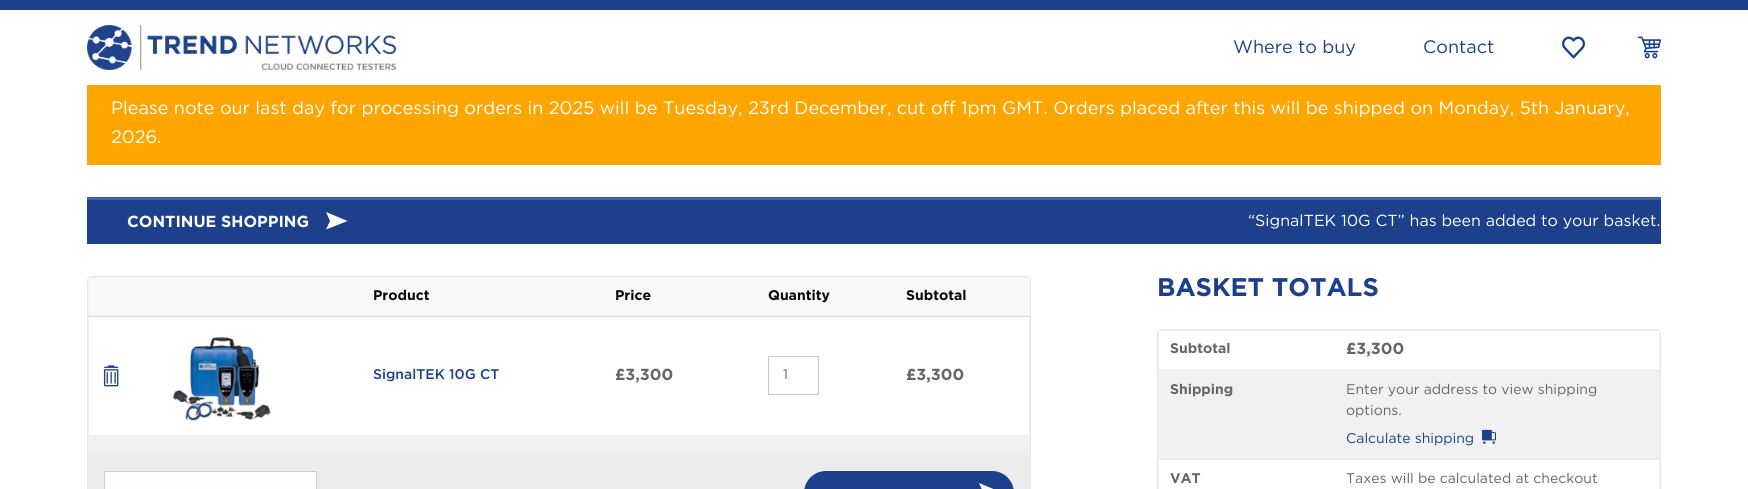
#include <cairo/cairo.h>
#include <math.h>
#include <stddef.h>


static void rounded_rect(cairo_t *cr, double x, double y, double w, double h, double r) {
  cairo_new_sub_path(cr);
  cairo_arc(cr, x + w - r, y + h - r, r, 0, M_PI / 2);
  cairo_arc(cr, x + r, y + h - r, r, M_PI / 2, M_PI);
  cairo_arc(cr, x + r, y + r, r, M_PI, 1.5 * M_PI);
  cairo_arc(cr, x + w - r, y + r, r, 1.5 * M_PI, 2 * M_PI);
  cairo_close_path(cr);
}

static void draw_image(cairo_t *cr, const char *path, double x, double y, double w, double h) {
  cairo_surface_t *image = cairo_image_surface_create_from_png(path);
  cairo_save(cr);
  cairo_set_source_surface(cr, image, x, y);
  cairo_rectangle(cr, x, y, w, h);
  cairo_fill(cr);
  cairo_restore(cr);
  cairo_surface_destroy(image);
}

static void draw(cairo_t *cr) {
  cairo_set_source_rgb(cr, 1, 1, 1);
  cairo_paint(cr);
  cairo_set_source_rgb(cr, 28 / 255.0, 64 / 255.0, 140 / 255.0);
  cairo_rectangle(cr, 0, 0, 1748, 10);
  cairo_fill(cr);
  draw_image(cr, "images/1.png", 87, 25, 309, 45);
  draw_image(cr, "images/2.png", 1562, 36, 23, 23);
  draw_image(cr, "images/3.png", 1638, 36, 23, 23);
  cairo_set_source_rgb(cr, 1, 165 / 255.0, 0);
  cairo_rectangle(cr, 87, 85, 1574, 80);
  cairo_fill(cr);
  cairo_set_source_rgb(cr, 28 / 255.0, 64 / 255.0, 140 / 255.0);
  cairo_rectangle(cr, 87, 200, 1574, 44);
  cairo_fill(cr);
  cairo_set_source_rgb(cr, 64 / 255.0, 96 / 255.0, 169 / 255.0);
  cairo_rectangle(cr, 87, 197, 1574, 3);
  cairo_fill(cr);
  cairo_set_source_rgb(cr, 1, 1, 1);
  cairo_new_path(cr);
  cairo_move_to(cr, 326, 229.5);
  cairo_line_to(cr, 330, 221);
  cairo_line_to(cr, 326, 212);
  cairo_line_to(cr, 347.5, 221);
  cairo_close_path(cr);
  cairo_fill(cr);
  rounded_rect(cr, 87.5, 276.5, 943, 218, 4.5);
  cairo_set_source_rgb(cr, 230 / 255.0, 230 / 255.0, 230 / 255.0);
  cairo_set_line_width(cr, 1);
  cairo_stroke(cr);
  cairo_set_source_rgb(cr, 248 / 255.0, 248 / 255.0, 248 / 255.0);
  cairo_rectangle(cr, 88.5, 277.5, 941, 38);
  cairo_fill_preserve(cr);
  cairo_set_source_rgb(cr, 241 / 255.0, 241 / 255.0, 241 / 255.0);
  cairo_stroke(cr);
  cairo_rectangle(cr, 88.5, 316.5, 941, 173);
  cairo_stroke(cr);
  cairo_set_source_rgb(cr, 217 / 255.0, 217 / 255.0, 217 / 255.0);
  cairo_rectangle(cr, 88, 316, 942, 1);
  cairo_fill(cr);
  draw_image(cr, "images/4.png", 103, 365, 16, 22);
  draw_image(cr, "images/5.png", 172, 337, 99, 84);
  cairo_rectangle(cr, 768.5, 356.5, 50, 38);
  cairo_set_source_rgb(cr, 202 / 255.0, 202 / 255.0, 202 / 255.0);
  cairo_stroke(cr);
  cairo_set_source_rgb(cr, 241 / 255.0, 241 / 255.0, 241 / 255.0);
  cairo_rectangle(cr, 89, 435, 940, 20);
  cairo_fill(cr);
  cairo_set_source_rgb(cr, 236 / 255.0, 236 / 255.0, 236 / 255.0);
  cairo_rectangle(cr, 88, 455, 942, 34);
  cairo_fill(cr);
  cairo_set_source_rgb(cr, 254 / 255.0, 254 / 255.0, 254 / 255.0);
  cairo_rectangle(cr, 104.5, 471.5, 212, 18);
  cairo_fill_preserve(cr);
  cairo_set_source_rgb(cr, 207 / 255.0, 200 / 255.0, 216 / 255.0);
  cairo_stroke(cr);
  cairo_set_source_rgb(cr, 28 / 255.0, 64 / 255.0, 140 / 255.0);
  rounded_rect(cr, 804, 471, 210, 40, 22);
  cairo_fill(cr);
  cairo_set_source_rgb(cr, 1, 1, 1);
  cairo_new_path(cr);
  cairo_move_to(cr, 979, 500.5);
  cairo_line_to(cr, 983, 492);
  cairo_line_to(cr, 979, 483);
  cairo_line_to(cr, 1000.5, 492);
  cairo_close_path(cr);
  cairo_fill(cr);
  rounded_rect(cr, 1157.5, 329.5, 503, 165, 4.5);
  cairo_set_source_rgb(cr, 230 / 255.0, 230 / 255.0, 230 / 255.0);
  cairo_stroke(cr);
  cairo_rectangle(cr, 1158.5, 330.5, 501, 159);
  cairo_set_source_rgb(cr, 241 / 255.0, 241 / 255.0, 241 / 255.0);
  cairo_stroke(cr);
  cairo_rectangle(cr, 1159, 371, 500, 88);
  cairo_fill(cr);
  cairo_set_source_rgb(cr, 233 / 255.0, 230 / 255.0, 237 / 255.0);
  cairo_rectangle(cr, 1158, 370, 502, 1);
  cairo_fill(cr);
  draw_image(cr, "images/6.png", 1482, 429, 14, 15);
  cairo_rectangle(cr, 1158, 459, 502, 1);
  cairo_fill(cr);
  cairo_select_font_face(cr, "Gotham", CAIRO_FONT_SLANT_NORMAL, CAIRO_FONT_WEIGHT_NORMAL);
  cairo_set_font_size(cr, 18);
  cairo_set_source_rgb(cr, 28 / 255.0, 64 / 255.0, 140 / 255.0);
  cairo_move_to(cr, 1233, 53);
  cairo_show_text(cr, "Where to buy");
  cairo_move_to(cr, 1423, 53);
  cairo_show_text(cr, "Contact");
  cairo_set_source_rgb(cr, 1, 1, 1);
  cairo_move_to(cr, 111, 114);
  cairo_show_text(cr, "Please note our last day for processing orders in 2025 will be Tuesday, 23rd December, cut off 1pm GMT. Orders placed after this will be shipped on Monday, 5th January,");
  cairo_move_to(cr, 111, 143);
  cairo_show_text(cr, "2026.");
  cairo_select_font_face(cr, "Gotham", CAIRO_FONT_SLANT_NORMAL, CAIRO_FONT_WEIGHT_BOLD);
  cairo_set_font_size(cr, 16);
  cairo_move_to(cr, 127, 227);
  cairo_show_text(cr, "CONTINUE SHOPPING");
  cairo_select_font_face(cr, "Gotham", CAIRO_FONT_SLANT_NORMAL, CAIRO_FONT_WEIGHT_NORMAL);
  cairo_move_to(cr, 1248, 226);
  cairo_show_text(cr, "“SignalTEK 10G CT” has been added to your basket.");
  cairo_select_font_face(cr, "Gotham", CAIRO_FONT_SLANT_NORMAL, CAIRO_FONT_WEIGHT_BOLD);
  cairo_set_font_size(cr, 14);
  cairo_set_source_rgb(cr, 10 / 255.0, 10 / 255.0, 10 / 255.0);
  cairo_move_to(cr, 373, 300);
  cairo_show_text(cr, "Product");
  cairo_move_to(cr, 615, 300);
  cairo_show_text(cr, "Price");
  cairo_move_to(cr, 768, 300);
  cairo_show_text(cr, "Quantity");
  cairo_move_to(cr, 906, 300);
  cairo_show_text(cr, "Subtotal");
  cairo_select_font_face(cr, "Gotham Medium", CAIRO_FONT_SLANT_NORMAL, CAIRO_FONT_WEIGHT_NORMAL);
  cairo_set_source_rgb(cr, 28 / 255.0, 64 / 255.0, 140 / 255.0);
  cairo_move_to(cr, 373, 379);
  cairo_show_text(cr, "SignalTEK 10G CT");
  cairo_select_font_face(cr, "Gotham", CAIRO_FONT_SLANT_NORMAL, CAIRO_FONT_WEIGHT_BOLD);
  cairo_set_font_size(cr, 16);
  cairo_set_source_rgb(cr, 102 / 255.0, 102 / 255.0, 102 / 255.0);
  cairo_move_to(cr, 615, 380);
  cairo_show_text(cr, "£3,300");
  cairo_select_font_face(cr, "Gotham", CAIRO_FONT_SLANT_NORMAL, CAIRO_FONT_WEIGHT_NORMAL);
  cairo_set_font_size(cr, 14);
  cairo_move_to(cr, 783, 379);
  cairo_show_text(cr, "1");
  cairo_select_font_face(cr, "Gotham", CAIRO_FONT_SLANT_NORMAL, CAIRO_FONT_WEIGHT_BOLD);
  cairo_set_font_size(cr, 16);
  cairo_move_to(cr, 906, 380);
  cairo_show_text(cr, "£3,300");
  cairo_set_font_size(cr, 25.5);
  cairo_set_source_rgb(cr, 28 / 255.0, 64 / 255.0, 140 / 255.0);
  cairo_move_to(cr, 1157, 296);
  cairo_show_text(cr, "BASKET TOTALS");
  cairo_set_font_size(cr, 14);
  cairo_set_source_rgb(cr, 102 / 255.0, 102 / 255.0, 102 / 255.0);
  cairo_move_to(cr, 1170, 353);
  cairo_show_text(cr, "Subtotal");
  cairo_set_font_size(cr, 16);
  cairo_move_to(cr, 1346, 354);
  cairo_show_text(cr, "£3,300");
  cairo_set_font_size(cr, 14);
  cairo_move_to(cr, 1170, 394);
  cairo_show_text(cr, "Shipping");
  cairo_select_font_face(cr, "Gotham", CAIRO_FONT_SLANT_NORMAL, CAIRO_FONT_WEIGHT_NORMAL);
  cairo_move_to(cr, 1346, 394);
  cairo_show_text(cr, "Enter your address to view shipping");
  cairo_move_to(cr, 1346, 415);
  cairo_show_text(cr, "options.");
  cairo_set_source_rgb(cr, 28 / 255.0, 64 / 255.0, 140 / 255.0);
  cairo_move_to(cr, 1346, 443);
  cairo_show_text(cr, "Calculate shipping");
  cairo_select_font_face(cr, "Gotham", CAIRO_FONT_SLANT_NORMAL, CAIRO_FONT_WEIGHT_BOLD);
  cairo_set_source_rgb(cr, 102 / 255.0, 102 / 255.0, 102 / 255.0);
  cairo_move_to(cr, 1170, 483);
  cairo_show_text(cr, "VAT");
  cairo_select_font_face(cr, "Gotham", CAIRO_FONT_SLANT_NORMAL, CAIRO_FONT_WEIGHT_NORMAL);
  cairo_move_to(cr, 1346, 483);
  cairo_show_text(cr, "Taxes will be calculated at checkout");
}

int main(void) {
  cairo_surface_t *surface = cairo_image_surface_create(CAIRO_FORMAT_RGB24, 1748, 489);
  cairo_t *cr = cairo_create(surface);
  cairo_font_options_t *options = cairo_font_options_create();
  cairo_font_options_set_hint_metrics(options, CAIRO_HINT_METRICS_OFF);
  cairo_font_options_set_hint_style(options, CAIRO_HINT_STYLE_NONE);
  cairo_set_font_options(cr, options);
  cairo_set_miter_limit(cr, 4);
  draw(cr);
  cairo_surface_write_to_png(surface, "out.png");
  cairo_font_options_destroy(options);
  cairo_destroy(cr);
  cairo_surface_destroy(surface);
  return 0;
}
